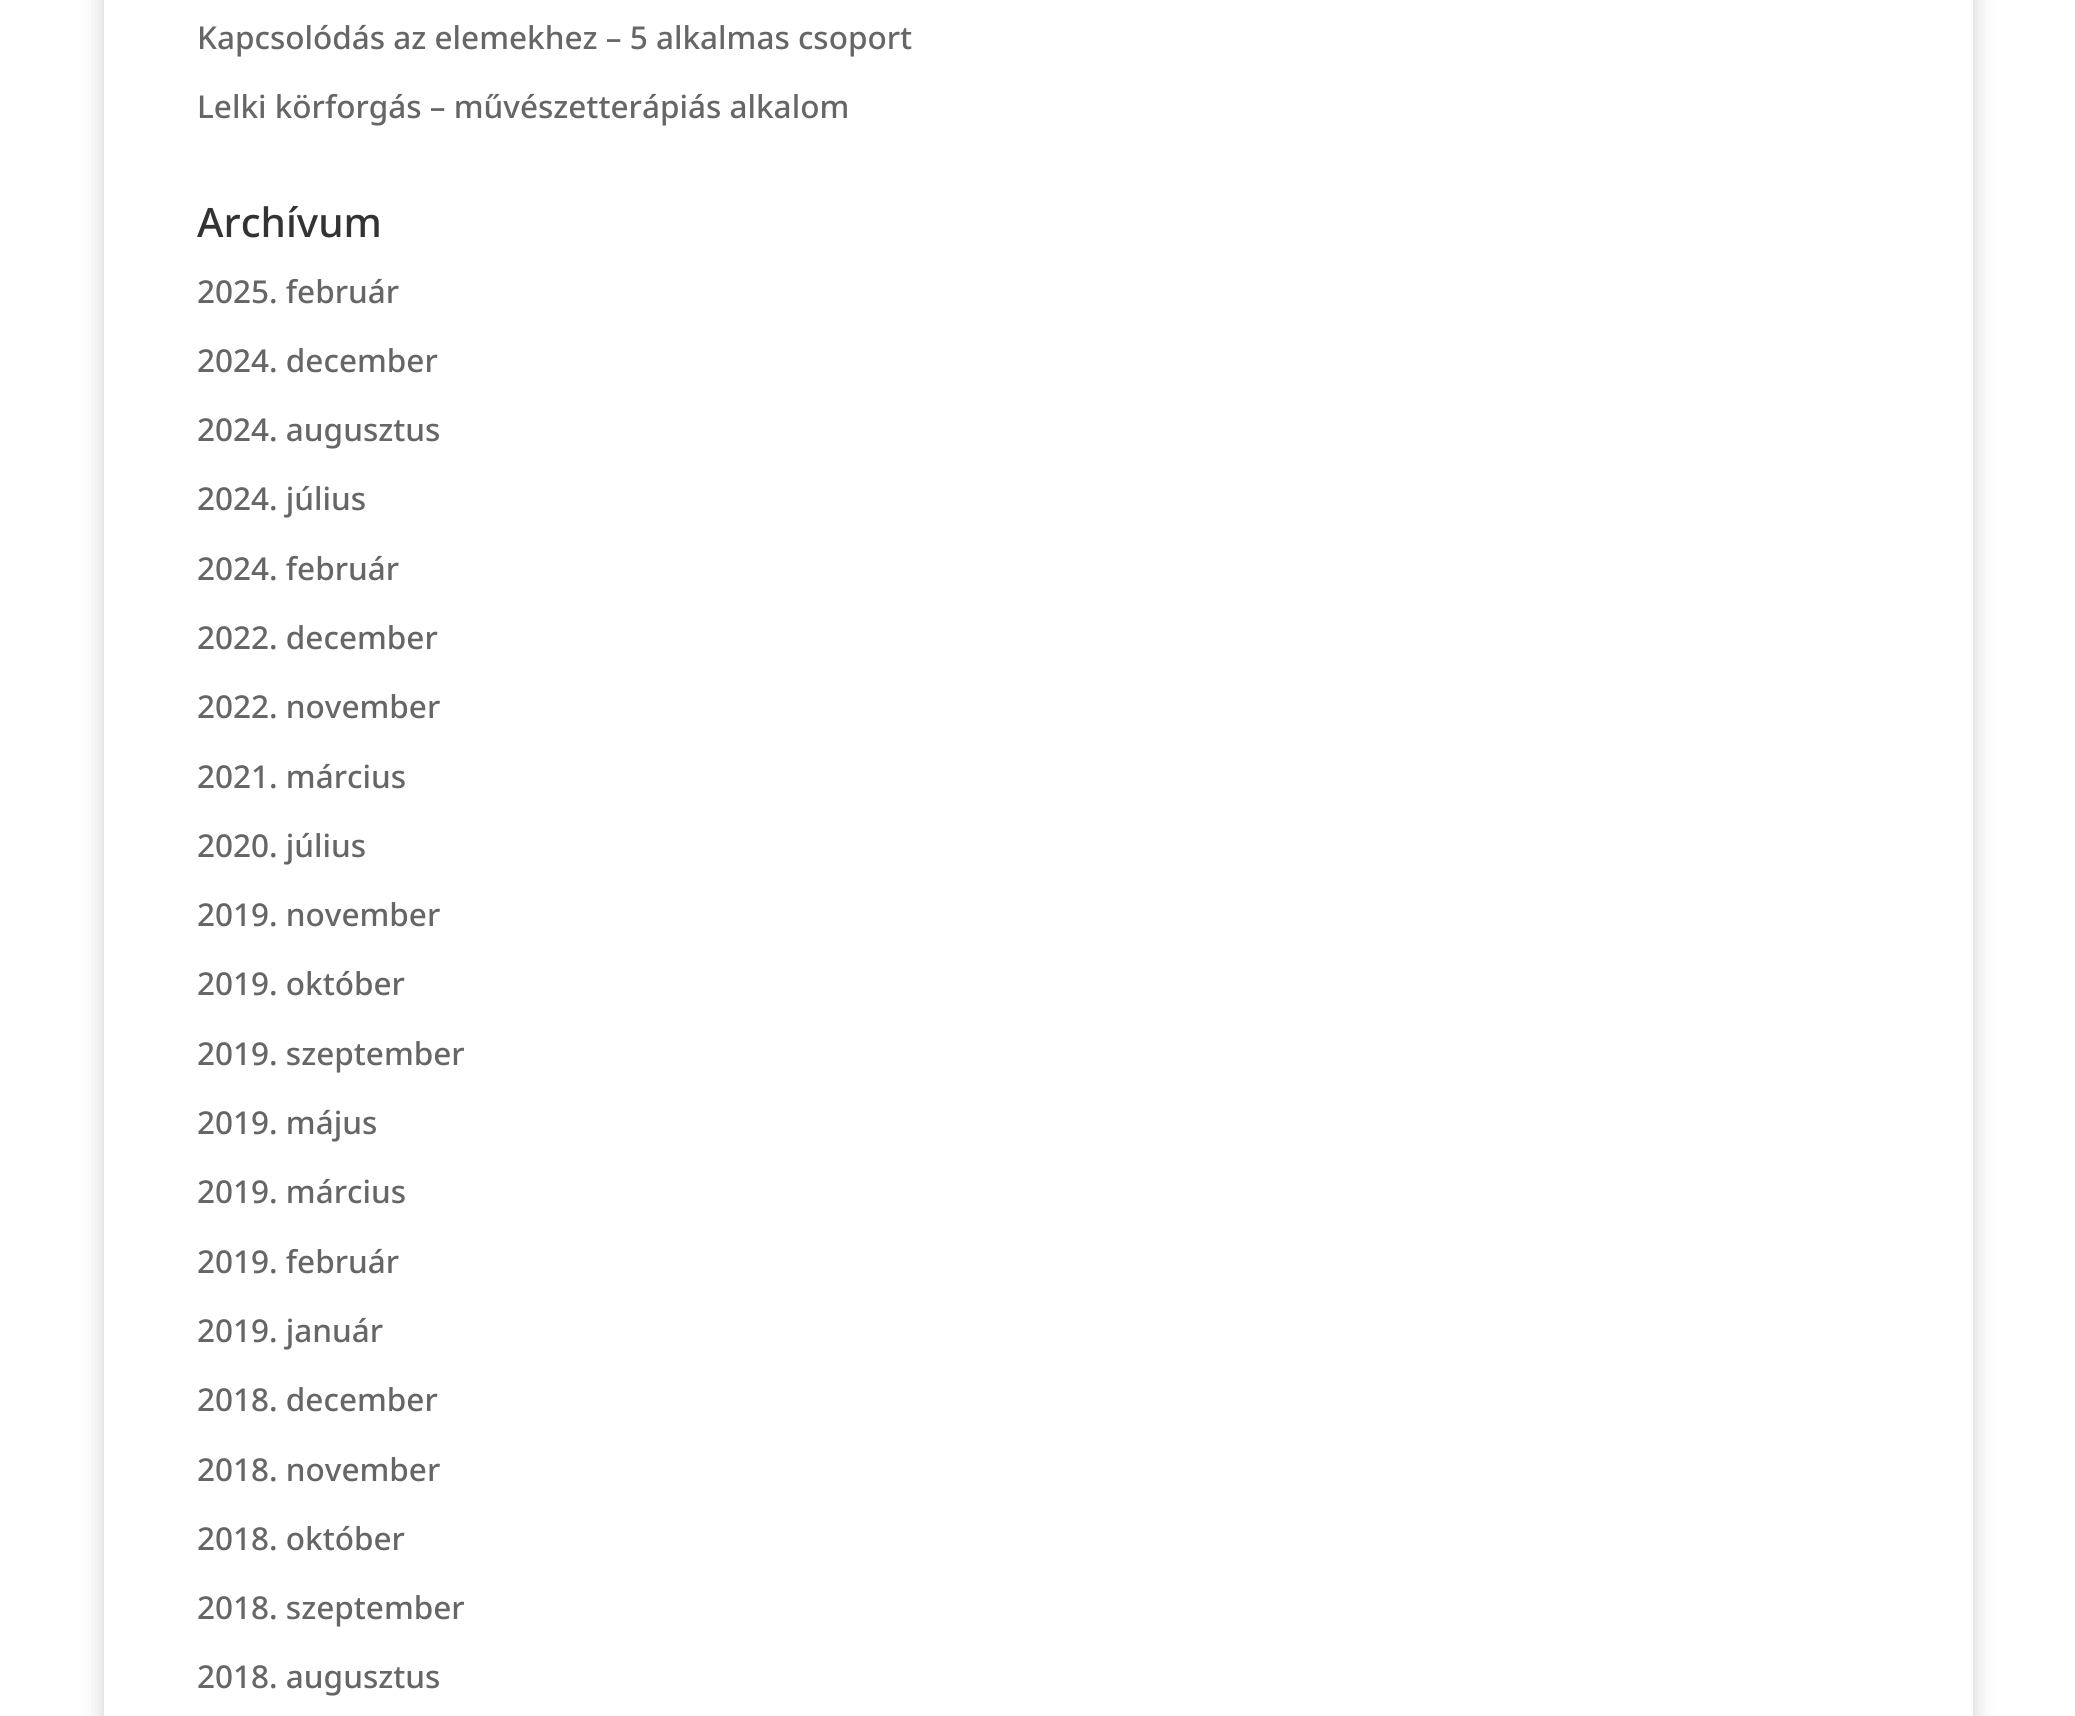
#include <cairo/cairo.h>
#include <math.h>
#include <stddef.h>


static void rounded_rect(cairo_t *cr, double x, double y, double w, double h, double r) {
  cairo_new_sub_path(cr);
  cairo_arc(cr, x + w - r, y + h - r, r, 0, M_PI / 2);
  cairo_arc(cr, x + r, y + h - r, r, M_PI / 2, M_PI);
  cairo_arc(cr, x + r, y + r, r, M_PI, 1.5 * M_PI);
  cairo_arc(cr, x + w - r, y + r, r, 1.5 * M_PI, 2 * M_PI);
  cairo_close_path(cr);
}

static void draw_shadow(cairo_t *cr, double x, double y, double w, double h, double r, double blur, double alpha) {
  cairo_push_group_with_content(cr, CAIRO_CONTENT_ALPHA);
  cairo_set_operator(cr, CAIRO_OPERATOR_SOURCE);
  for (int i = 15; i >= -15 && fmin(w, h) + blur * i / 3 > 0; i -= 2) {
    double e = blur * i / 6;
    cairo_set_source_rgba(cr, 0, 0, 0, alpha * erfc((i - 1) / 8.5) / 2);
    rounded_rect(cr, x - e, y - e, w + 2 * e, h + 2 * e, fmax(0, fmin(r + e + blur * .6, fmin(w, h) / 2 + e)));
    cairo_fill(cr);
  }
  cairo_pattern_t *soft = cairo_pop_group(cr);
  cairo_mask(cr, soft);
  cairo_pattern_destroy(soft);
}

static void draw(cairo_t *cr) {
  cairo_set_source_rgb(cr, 1, 1, 1);
  cairo_paint(cr);
  cairo_save(cr);
  cairo_set_fill_rule(cr, CAIRO_FILL_RULE_EVEN_ODD);
  cairo_new_path(cr);
  cairo_move_to(cr, 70, 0);
  cairo_line_to(cr, 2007, 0);
  cairo_line_to(cr, 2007, 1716);
  cairo_line_to(cr, 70, 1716);
  cairo_close_path(cr);
  cairo_move_to(cr, 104, -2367);
  cairo_line_to(cr, 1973, -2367);
  cairo_line_to(cr, 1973, 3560);
  cairo_line_to(cr, 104, 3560);
  cairo_close_path(cr);
  cairo_clip(cr);
  cairo_set_source_rgb(cr, 0, 0, 0);
  draw_shadow(cr, 104, -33, 1869, 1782, 0, 11, 0.2);
  cairo_restore(cr);
  cairo_select_font_face(cr, "Noto Sans Medium", CAIRO_FONT_SLANT_NORMAL, CAIRO_FONT_WEIGHT_NORMAL);
  cairo_set_font_size(cr, 31.5);
  cairo_set_source_rgb(cr, 102 / 255.0, 102 / 255.0, 102 / 255.0);
  cairo_move_to(cr, 197, 49);
  cairo_show_text(cr, "Kapcsolódás az elemekhez – 5 alkalmas csoport");
  cairo_move_to(cr, 197, 118);
  cairo_show_text(cr, "Lelki körforgás – művészetterápiás alkalom");
  cairo_set_font_size(cr, 40.5);
  cairo_set_source_rgb(cr, 51 / 255.0, 51 / 255.0, 51 / 255.0);
  cairo_move_to(cr, 197, 237);
  cairo_show_text(cr, "Archívum");
  cairo_set_font_size(cr, 31.5);
  cairo_set_source_rgb(cr, 102 / 255.0, 102 / 255.0, 102 / 255.0);
  cairo_move_to(cr, 197, 303);
  cairo_show_text(cr, "2025. február");
  cairo_move_to(cr, 197, 372);
  cairo_show_text(cr, "2024. december");
  cairo_move_to(cr, 197, 441);
  cairo_show_text(cr, "2024. augusztus");
  cairo_move_to(cr, 197, 510);
  cairo_show_text(cr, "2024. július");
  cairo_move_to(cr, 197, 580);
  cairo_show_text(cr, "2024. február");
  cairo_move_to(cr, 197, 649);
  cairo_show_text(cr, "2022. december");
  cairo_move_to(cr, 197, 718);
  cairo_show_text(cr, "2022. november");
  cairo_move_to(cr, 197, 788);
  cairo_show_text(cr, "2021. március");
  cairo_move_to(cr, 197, 857);
  cairo_show_text(cr, "2020. július");
  cairo_move_to(cr, 197, 926);
  cairo_show_text(cr, "2019. november");
  cairo_move_to(cr, 197, 995);
  cairo_show_text(cr, "2019. október");
  cairo_move_to(cr, 197, 1065);
  cairo_show_text(cr, "2019. szeptember");
  cairo_move_to(cr, 197, 1134);
  cairo_show_text(cr, "2019. május");
  cairo_move_to(cr, 197, 1203);
  cairo_show_text(cr, "2019. március");
  cairo_move_to(cr, 197, 1273);
  cairo_show_text(cr, "2019. február");
  cairo_move_to(cr, 197, 1342);
  cairo_show_text(cr, "2019. január");
  cairo_move_to(cr, 197, 1411);
  cairo_show_text(cr, "2018. december");
  cairo_move_to(cr, 197, 1481);
  cairo_show_text(cr, "2018. november");
  cairo_move_to(cr, 197, 1550);
  cairo_show_text(cr, "2018. október");
  cairo_move_to(cr, 197, 1619);
  cairo_show_text(cr, "2018. szeptember");
  cairo_move_to(cr, 197, 1688);
  cairo_show_text(cr, "2018. augusztus");
}

int main(void) {
  cairo_surface_t *surface = cairo_image_surface_create(CAIRO_FORMAT_RGB24, 2075, 1716);
  cairo_t *cr = cairo_create(surface);
  cairo_font_options_t *options = cairo_font_options_create();
  cairo_font_options_set_hint_metrics(options, CAIRO_HINT_METRICS_OFF);
  cairo_font_options_set_hint_style(options, CAIRO_HINT_STYLE_NONE);
  cairo_set_font_options(cr, options);
  cairo_set_miter_limit(cr, 4);
  draw(cr);
  cairo_surface_write_to_png(surface, "out.png");
  cairo_font_options_destroy(options);
  cairo_destroy(cr);
  cairo_surface_destroy(surface);
  return 0;
}
